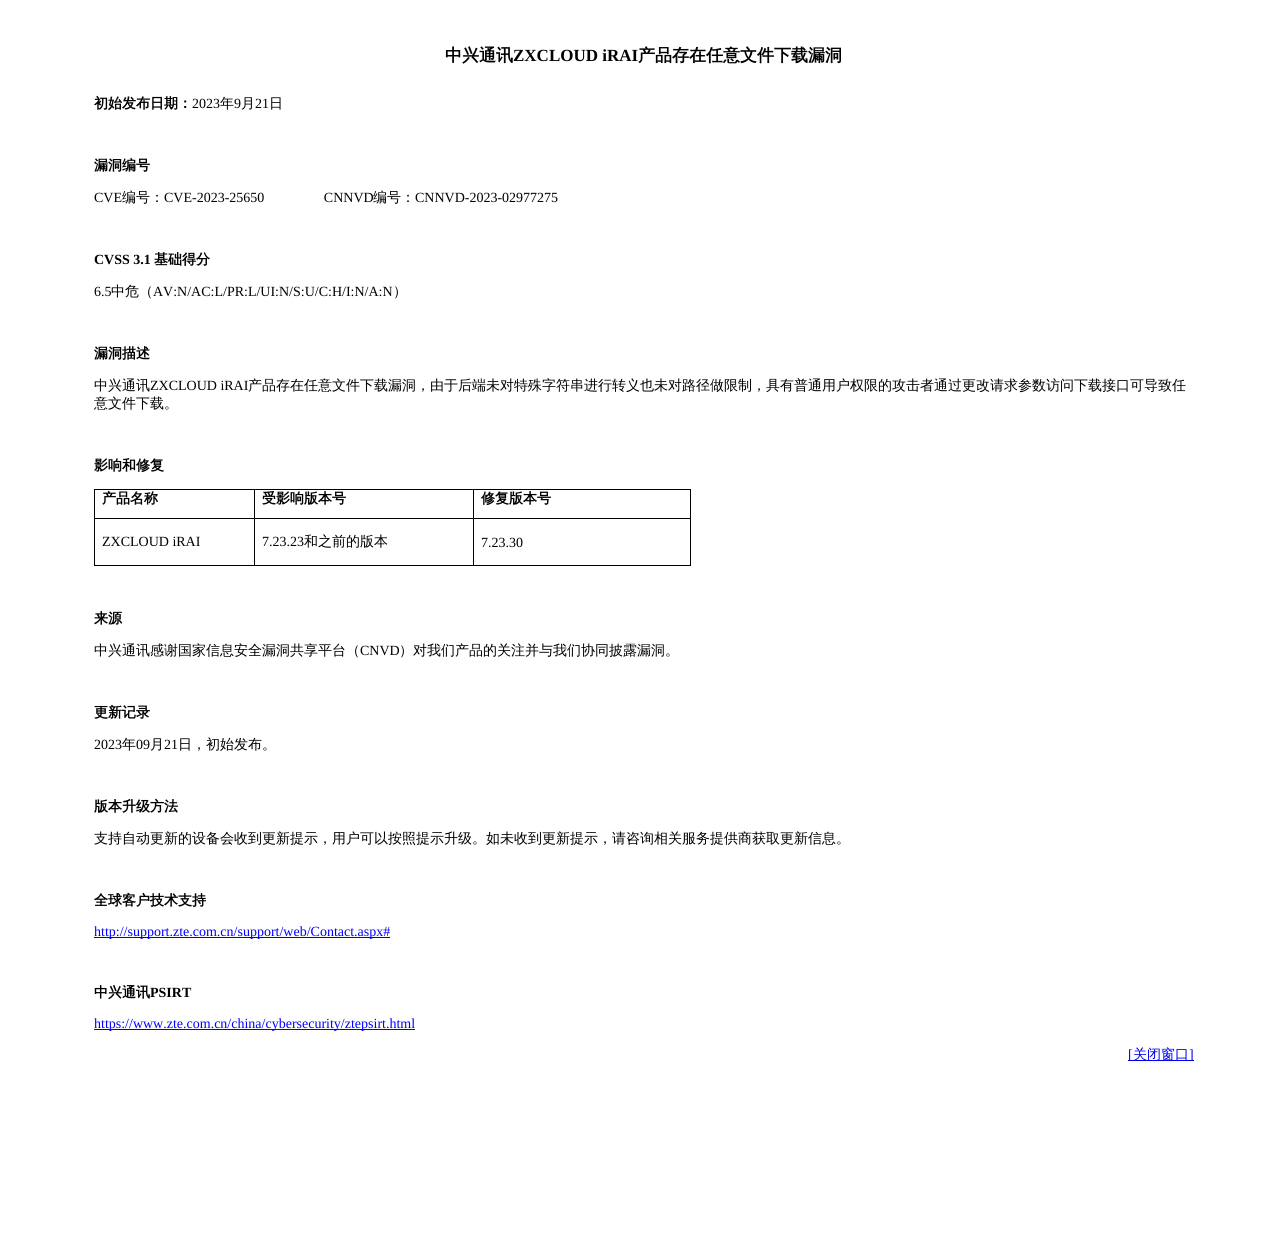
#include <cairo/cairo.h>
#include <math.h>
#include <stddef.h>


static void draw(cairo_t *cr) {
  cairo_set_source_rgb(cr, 1, 1, 1);
  cairo_paint(cr);
  cairo_set_source_rgb(cr, 0, 0, 0);
  cairo_rectangle(cr, 473, 489, 218, 1);
  cairo_fill(cr);
  cairo_rectangle(cr, 690, 518, 1, 48);
  cairo_fill(cr);
  cairo_rectangle(cr, 690, 489, 1, 30);
  cairo_fill(cr);
  cairo_rectangle(cr, 473, 565, 218, 1);
  cairo_fill(cr);
  cairo_rectangle(cr, 473, 518, 1, 48);
  cairo_fill(cr);
  cairo_rectangle(cr, 473, 518, 218, 1);
  cairo_fill(cr);
  cairo_rectangle(cr, 473, 489, 1, 30);
  cairo_fill(cr);
  cairo_rectangle(cr, 254, 489, 220, 1);
  cairo_fill(cr);
  cairo_rectangle(cr, 254, 565, 220, 1);
  cairo_fill(cr);
  cairo_rectangle(cr, 254, 518, 1, 48);
  cairo_fill(cr);
  cairo_rectangle(cr, 254, 518, 220, 1);
  cairo_fill(cr);
  cairo_rectangle(cr, 254, 489, 1, 30);
  cairo_fill(cr);
  cairo_rectangle(cr, 94, 489, 161, 1);
  cairo_fill(cr);
  cairo_rectangle(cr, 94, 565, 161, 1);
  cairo_fill(cr);
  cairo_rectangle(cr, 94, 518, 1, 48);
  cairo_fill(cr);
  cairo_rectangle(cr, 94, 518, 161, 1);
  cairo_fill(cr);
  cairo_rectangle(cr, 94, 489, 1, 30);
  cairo_fill(cr);
  cairo_set_source_rgb(cr, 0, 0, 238 / 255.0);
  cairo_rectangle(cr, 94, 937, 296, 1);
  cairo_fill(cr);
  cairo_rectangle(cr, 94, 1029, 321, 1);
  cairo_fill(cr);
  cairo_rectangle(cr, 1128, 1060, 66, 1);
  cairo_fill(cr);
  cairo_select_font_face(cr, "WenQuanYi Zen Hei", CAIRO_FONT_SLANT_NORMAL, CAIRO_FONT_WEIGHT_BOLD);
  cairo_set_font_size(cr, 17);
  cairo_set_source_rgb(cr, 0, 0, 0);
  cairo_move_to(cr, 445, 61);
  cairo_show_text(cr, "中兴通讯");
  cairo_select_font_face(cr, "Liberation Serif", CAIRO_FONT_SLANT_NORMAL, CAIRO_FONT_WEIGHT_BOLD);
  cairo_move_to(cr, 513, 61);
  cairo_show_text(cr, "ZXCLOUD iRAI");
  cairo_select_font_face(cr, "WenQuanYi Zen Hei", CAIRO_FONT_SLANT_NORMAL, CAIRO_FONT_WEIGHT_BOLD);
  cairo_move_to(cr, 638, 61);
  cairo_show_text(cr, "产品存在任意文件下载漏洞");
  cairo_set_font_size(cr, 14);
  cairo_move_to(cr, 94, 108);
  cairo_show_text(cr, "初始发布日期：");
  cairo_select_font_face(cr, "Liberation Serif", CAIRO_FONT_SLANT_NORMAL, CAIRO_FONT_WEIGHT_NORMAL);
  cairo_move_to(cr, 192, 108);
  cairo_show_text(cr, "2023");
  cairo_select_font_face(cr, "WenQuanYi Zen Hei Medium", CAIRO_FONT_SLANT_NORMAL, CAIRO_FONT_WEIGHT_NORMAL);
  cairo_move_to(cr, 220, 108);
  cairo_show_text(cr, "年");
  cairo_select_font_face(cr, "Liberation Serif", CAIRO_FONT_SLANT_NORMAL, CAIRO_FONT_WEIGHT_NORMAL);
  cairo_move_to(cr, 234, 108);
  cairo_show_text(cr, "9");
  cairo_select_font_face(cr, "WenQuanYi Zen Hei Medium", CAIRO_FONT_SLANT_NORMAL, CAIRO_FONT_WEIGHT_NORMAL);
  cairo_move_to(cr, 241, 108);
  cairo_show_text(cr, "月");
  cairo_select_font_face(cr, "Liberation Serif", CAIRO_FONT_SLANT_NORMAL, CAIRO_FONT_WEIGHT_NORMAL);
  cairo_move_to(cr, 255, 108);
  cairo_show_text(cr, "21");
  cairo_select_font_face(cr, "WenQuanYi Zen Hei Medium", CAIRO_FONT_SLANT_NORMAL, CAIRO_FONT_WEIGHT_NORMAL);
  cairo_move_to(cr, 269, 108);
  cairo_show_text(cr, "日");
  cairo_select_font_face(cr, "WenQuanYi Zen Hei", CAIRO_FONT_SLANT_NORMAL, CAIRO_FONT_WEIGHT_BOLD);
  cairo_move_to(cr, 94, 170);
  cairo_show_text(cr, "漏洞编号");
  cairo_select_font_face(cr, "Liberation Serif", CAIRO_FONT_SLANT_NORMAL, CAIRO_FONT_WEIGHT_NORMAL);
  cairo_move_to(cr, 94, 202);
  cairo_show_text(cr, "CVE");
  cairo_select_font_face(cr, "WenQuanYi Zen Hei Medium", CAIRO_FONT_SLANT_NORMAL, CAIRO_FONT_WEIGHT_NORMAL);
  cairo_move_to(cr, 122, 202);
  cairo_show_text(cr, "编号：");
  cairo_select_font_face(cr, "Liberation Serif", CAIRO_FONT_SLANT_NORMAL, CAIRO_FONT_WEIGHT_NORMAL);
  cairo_move_to(cr, 164, 202);
  cairo_show_text(cr, "CVE-2023-25650                 CNNVD");
  cairo_select_font_face(cr, "WenQuanYi Zen Hei Medium", CAIRO_FONT_SLANT_NORMAL, CAIRO_FONT_WEIGHT_NORMAL);
  cairo_move_to(cr, 373, 202);
  cairo_show_text(cr, "编号：");
  cairo_select_font_face(cr, "Liberation Serif", CAIRO_FONT_SLANT_NORMAL, CAIRO_FONT_WEIGHT_NORMAL);
  cairo_move_to(cr, 415, 202);
  cairo_show_text(cr, "CNNVD-2023-02977275");
  cairo_select_font_face(cr, "Liberation Serif", CAIRO_FONT_SLANT_NORMAL, CAIRO_FONT_WEIGHT_BOLD);
  cairo_move_to(cr, 94, 264);
  cairo_show_text(cr, "CVSS 3.1");
  cairo_select_font_face(cr, "WenQuanYi Zen Hei", CAIRO_FONT_SLANT_NORMAL, CAIRO_FONT_WEIGHT_BOLD);
  cairo_move_to(cr, 154, 264);
  cairo_show_text(cr, "基础得分");
  cairo_select_font_face(cr, "Liberation Serif", CAIRO_FONT_SLANT_NORMAL, CAIRO_FONT_WEIGHT_NORMAL);
  cairo_move_to(cr, 94, 296);
  cairo_show_text(cr, "6.5");
  cairo_select_font_face(cr, "WenQuanYi Zen Hei Medium", CAIRO_FONT_SLANT_NORMAL, CAIRO_FONT_WEIGHT_NORMAL);
  cairo_move_to(cr, 111, 296);
  cairo_show_text(cr, "中危（");
  cairo_select_font_face(cr, "Liberation Serif", CAIRO_FONT_SLANT_NORMAL, CAIRO_FONT_WEIGHT_NORMAL);
  cairo_move_to(cr, 153, 296);
  cairo_show_text(cr, "AV:N/AC:L/PR:L/UI:N/S:U/C:H/I:N/A:N");
  cairo_select_font_face(cr, "WenQuanYi Zen Hei Medium", CAIRO_FONT_SLANT_NORMAL, CAIRO_FONT_WEIGHT_NORMAL);
  cairo_move_to(cr, 393, 296);
  cairo_show_text(cr, "）");
  cairo_select_font_face(cr, "WenQuanYi Zen Hei", CAIRO_FONT_SLANT_NORMAL, CAIRO_FONT_WEIGHT_BOLD);
  cairo_move_to(cr, 94, 358);
  cairo_show_text(cr, "漏洞描述");
  cairo_select_font_face(cr, "WenQuanYi Zen Hei Medium", CAIRO_FONT_SLANT_NORMAL, CAIRO_FONT_WEIGHT_NORMAL);
  cairo_move_to(cr, 94, 390);
  cairo_show_text(cr, "中兴通讯");
  cairo_select_font_face(cr, "Liberation Serif", CAIRO_FONT_SLANT_NORMAL, CAIRO_FONT_WEIGHT_NORMAL);
  cairo_move_to(cr, 150, 390);
  cairo_show_text(cr, "ZXCLOUD iRAI");
  cairo_select_font_face(cr, "WenQuanYi Zen Hei Medium", CAIRO_FONT_SLANT_NORMAL, CAIRO_FONT_WEIGHT_NORMAL);
  cairo_move_to(cr, 248, 390);
  cairo_show_text(cr, "产品存在任意文件下载漏洞，由于后端未对特殊字符串进行转义也未对路径做限制，具有普通用户权限的攻击者通过更改请求参数访问下载接口可导致任");
  cairo_move_to(cr, 94, 408);
  cairo_show_text(cr, "意文件下载。");
  cairo_select_font_face(cr, "WenQuanYi Zen Hei", CAIRO_FONT_SLANT_NORMAL, CAIRO_FONT_WEIGHT_BOLD);
  cairo_move_to(cr, 94, 470);
  cairo_show_text(cr, "影响和修复");
  cairo_move_to(cr, 102, 503);
  cairo_show_text(cr, "产品名称");
  cairo_move_to(cr, 262, 503);
  cairo_show_text(cr, "受影响版本号");
  cairo_move_to(cr, 481, 503);
  cairo_show_text(cr, "修复版本号");
  cairo_select_font_face(cr, "Liberation Serif", CAIRO_FONT_SLANT_NORMAL, CAIRO_FONT_WEIGHT_NORMAL);
  cairo_move_to(cr, 102, 546);
  cairo_show_text(cr, "ZXCLOUD iRAI");
  cairo_move_to(cr, 262, 546);
  cairo_show_text(cr, "7.23.23");
  cairo_select_font_face(cr, "WenQuanYi Zen Hei Medium", CAIRO_FONT_SLANT_NORMAL, CAIRO_FONT_WEIGHT_NORMAL);
  cairo_move_to(cr, 304, 546);
  cairo_show_text(cr, "和之前的版本");
  cairo_select_font_face(cr, "Liberation Serif", CAIRO_FONT_SLANT_NORMAL, CAIRO_FONT_WEIGHT_NORMAL);
  cairo_move_to(cr, 481, 547);
  cairo_show_text(cr, "7.23.30");
  cairo_select_font_face(cr, "WenQuanYi Zen Hei", CAIRO_FONT_SLANT_NORMAL, CAIRO_FONT_WEIGHT_BOLD);
  cairo_move_to(cr, 94, 623);
  cairo_show_text(cr, "来源");
  cairo_select_font_face(cr, "WenQuanYi Zen Hei Medium", CAIRO_FONT_SLANT_NORMAL, CAIRO_FONT_WEIGHT_NORMAL);
  cairo_move_to(cr, 94, 655);
  cairo_show_text(cr, "中兴通讯感谢国家信息安全漏洞共享平台（");
  cairo_select_font_face(cr, "Liberation Serif", CAIRO_FONT_SLANT_NORMAL, CAIRO_FONT_WEIGHT_NORMAL);
  cairo_move_to(cr, 360, 655);
  cairo_show_text(cr, "CNVD");
  cairo_select_font_face(cr, "WenQuanYi Zen Hei Medium", CAIRO_FONT_SLANT_NORMAL, CAIRO_FONT_WEIGHT_NORMAL);
  cairo_move_to(cr, 399, 655);
  cairo_show_text(cr, "）对我们产品的关注并与我们协同披露漏洞。");
  cairo_select_font_face(cr, "WenQuanYi Zen Hei", CAIRO_FONT_SLANT_NORMAL, CAIRO_FONT_WEIGHT_BOLD);
  cairo_move_to(cr, 94, 717);
  cairo_show_text(cr, "更新记录");
  cairo_select_font_face(cr, "Liberation Serif", CAIRO_FONT_SLANT_NORMAL, CAIRO_FONT_WEIGHT_NORMAL);
  cairo_move_to(cr, 94, 749);
  cairo_show_text(cr, "2023");
  cairo_select_font_face(cr, "WenQuanYi Zen Hei Medium", CAIRO_FONT_SLANT_NORMAL, CAIRO_FONT_WEIGHT_NORMAL);
  cairo_move_to(cr, 122, 749);
  cairo_show_text(cr, "年");
  cairo_select_font_face(cr, "Liberation Serif", CAIRO_FONT_SLANT_NORMAL, CAIRO_FONT_WEIGHT_NORMAL);
  cairo_move_to(cr, 136, 749);
  cairo_show_text(cr, "09");
  cairo_select_font_face(cr, "WenQuanYi Zen Hei Medium", CAIRO_FONT_SLANT_NORMAL, CAIRO_FONT_WEIGHT_NORMAL);
  cairo_move_to(cr, 150, 749);
  cairo_show_text(cr, "月");
  cairo_select_font_face(cr, "Liberation Serif", CAIRO_FONT_SLANT_NORMAL, CAIRO_FONT_WEIGHT_NORMAL);
  cairo_move_to(cr, 164, 749);
  cairo_show_text(cr, "21");
  cairo_select_font_face(cr, "WenQuanYi Zen Hei Medium", CAIRO_FONT_SLANT_NORMAL, CAIRO_FONT_WEIGHT_NORMAL);
  cairo_move_to(cr, 178, 749);
  cairo_show_text(cr, "日，初始发布。");
  cairo_select_font_face(cr, "WenQuanYi Zen Hei", CAIRO_FONT_SLANT_NORMAL, CAIRO_FONT_WEIGHT_BOLD);
  cairo_move_to(cr, 94, 811);
  cairo_show_text(cr, "版本升级方法");
  cairo_select_font_face(cr, "WenQuanYi Zen Hei Medium", CAIRO_FONT_SLANT_NORMAL, CAIRO_FONT_WEIGHT_NORMAL);
  cairo_move_to(cr, 94, 843);
  cairo_show_text(cr, "支持自动更新的设备会收到更新提示，用户可以按照提示升级。如未收到更新提示，请咨询相关服务提供商获取更新信息。");
  cairo_select_font_face(cr, "WenQuanYi Zen Hei", CAIRO_FONT_SLANT_NORMAL, CAIRO_FONT_WEIGHT_BOLD);
  cairo_move_to(cr, 94, 905);
  cairo_show_text(cr, "全球客户技术支持");
  cairo_select_font_face(cr, "Liberation Serif", CAIRO_FONT_SLANT_NORMAL, CAIRO_FONT_WEIGHT_NORMAL);
  cairo_set_source_rgb(cr, 0, 0, 1);
  cairo_move_to(cr, 94, 936);
  cairo_show_text(cr, "http://support.zte.com.cn/support/web/Contact.aspx#");
  cairo_select_font_face(cr, "WenQuanYi Zen Hei", CAIRO_FONT_SLANT_NORMAL, CAIRO_FONT_WEIGHT_BOLD);
  cairo_set_source_rgb(cr, 0, 0, 0);
  cairo_move_to(cr, 94, 997);
  cairo_show_text(cr, "中兴通讯");
  cairo_select_font_face(cr, "Liberation Serif", CAIRO_FONT_SLANT_NORMAL, CAIRO_FONT_WEIGHT_BOLD);
  cairo_move_to(cr, 150, 997);
  cairo_show_text(cr, "PSIRT");
  cairo_select_font_face(cr, "Liberation Serif", CAIRO_FONT_SLANT_NORMAL, CAIRO_FONT_WEIGHT_NORMAL);
  cairo_set_source_rgb(cr, 0, 0, 1);
  cairo_move_to(cr, 94, 1028);
  cairo_show_text(cr, "https://www.zte.com.cn/china/cybersecurity/ztepsirt.html");
  cairo_set_source_rgb(cr, 0, 0, 238 / 255.0);
  cairo_move_to(cr, 1128, 1059);
  cairo_show_text(cr, "[");
  cairo_select_font_face(cr, "WenQuanYi Zen Hei Medium", CAIRO_FONT_SLANT_NORMAL, CAIRO_FONT_WEIGHT_NORMAL);
  cairo_move_to(cr, 1133, 1059);
  cairo_show_text(cr, "关闭窗口");
  cairo_select_font_face(cr, "Liberation Serif", CAIRO_FONT_SLANT_NORMAL, CAIRO_FONT_WEIGHT_NORMAL);
  cairo_move_to(cr, 1189, 1059);
  cairo_show_text(cr, "]");
}

int main(void) {
  cairo_surface_t *surface = cairo_image_surface_create(CAIRO_FORMAT_RGB24, 1287, 1247);
  cairo_t *cr = cairo_create(surface);
  cairo_font_options_t *options = cairo_font_options_create();
  cairo_font_options_set_hint_metrics(options, CAIRO_HINT_METRICS_OFF);
  cairo_font_options_set_hint_style(options, CAIRO_HINT_STYLE_NONE);
  cairo_set_font_options(cr, options);
  cairo_set_miter_limit(cr, 4);
  draw(cr);
  cairo_surface_write_to_png(surface, "out.png");
  cairo_font_options_destroy(options);
  cairo_destroy(cr);
  cairo_surface_destroy(surface);
  return 0;
}
